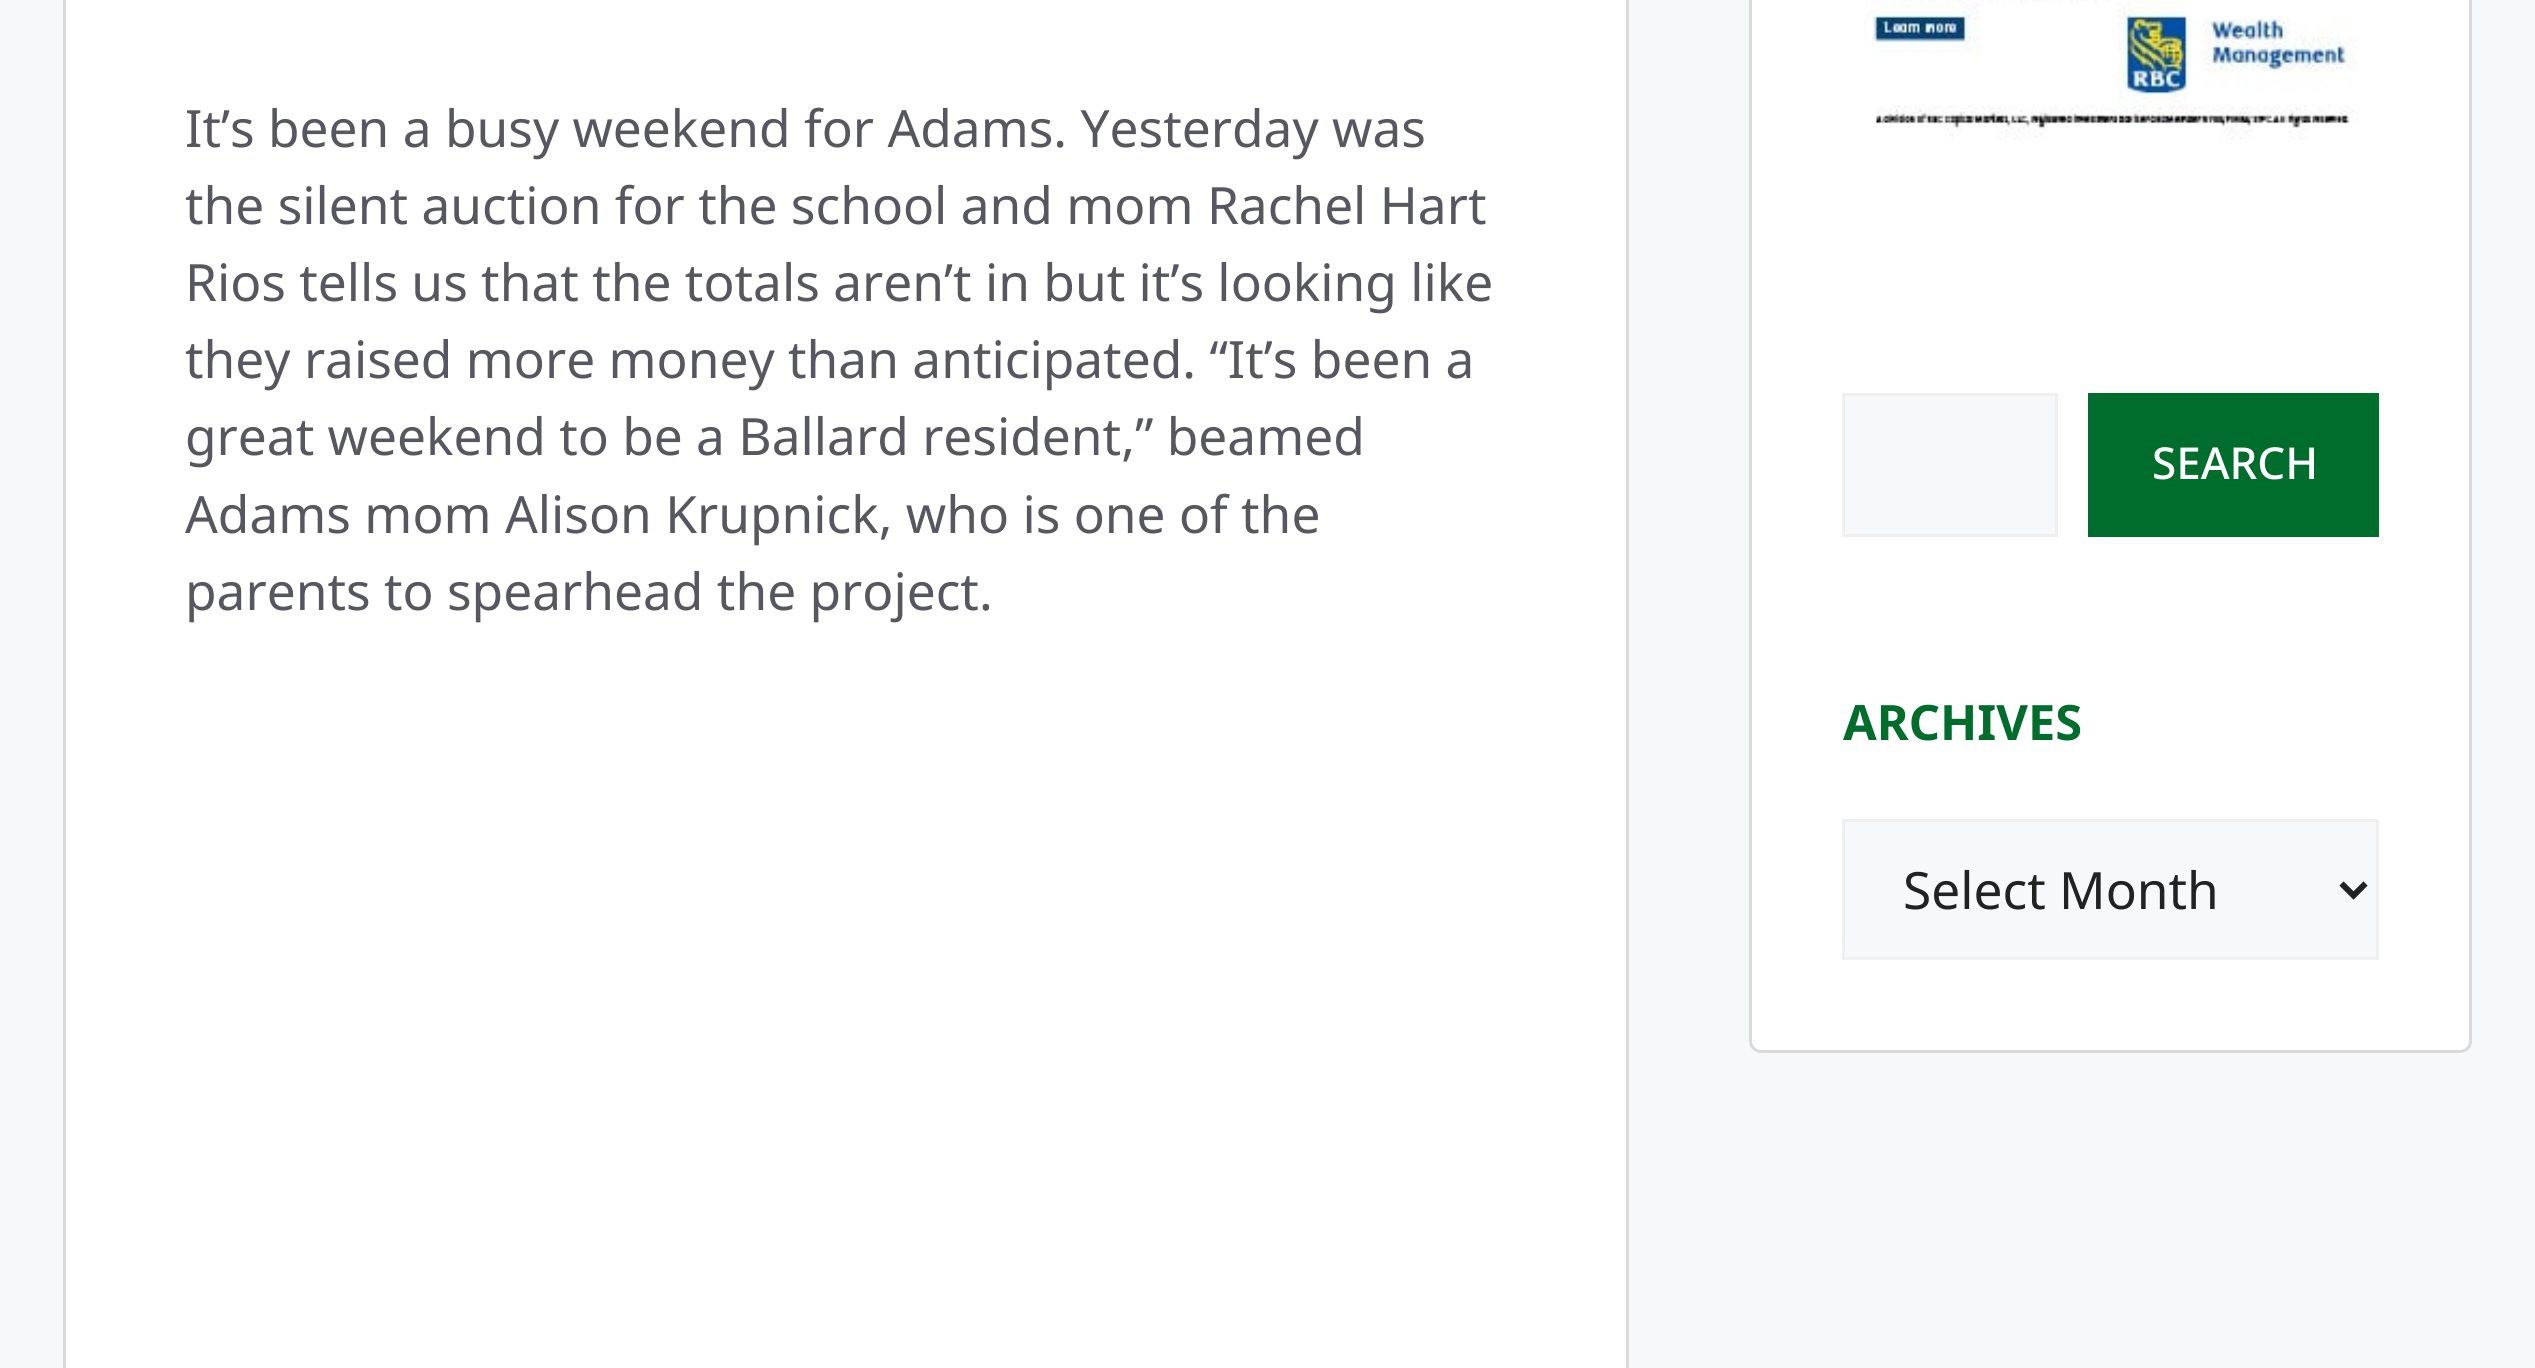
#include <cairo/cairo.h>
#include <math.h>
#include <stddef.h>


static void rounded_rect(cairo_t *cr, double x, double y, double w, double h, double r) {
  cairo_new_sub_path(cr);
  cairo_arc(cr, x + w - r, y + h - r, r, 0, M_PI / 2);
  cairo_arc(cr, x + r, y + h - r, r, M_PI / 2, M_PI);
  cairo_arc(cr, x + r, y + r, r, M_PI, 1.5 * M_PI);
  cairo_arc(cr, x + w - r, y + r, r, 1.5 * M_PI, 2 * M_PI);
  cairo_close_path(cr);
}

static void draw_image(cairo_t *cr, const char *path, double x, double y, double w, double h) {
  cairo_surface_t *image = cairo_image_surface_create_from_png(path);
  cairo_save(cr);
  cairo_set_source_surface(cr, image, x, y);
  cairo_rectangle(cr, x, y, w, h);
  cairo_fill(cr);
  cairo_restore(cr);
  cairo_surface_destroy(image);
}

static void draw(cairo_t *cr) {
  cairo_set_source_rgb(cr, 247 / 255.0, 248 / 255.0, 249 / 255.0);
  cairo_paint(cr);
  cairo_set_source_rgb(cr, 1, 1, 1);
  cairo_rectangle(cr, 64.5, -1.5, 1563, 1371);
  cairo_fill_preserve(cr);
  cairo_set_source_rgb(cr, 218 / 255.0, 218 / 255.0, 218 / 255.0);
  cairo_set_line_width(cr, 3);
  cairo_stroke(cr);
  cairo_set_source_rgb(cr, 1, 1, 1);
  rounded_rect(cr, 1750.5, -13.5, 720, 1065, 10.5);
  cairo_fill_preserve(cr);
  cairo_set_source_rgb(cr, 218 / 255.0, 218 / 255.0, 218 / 255.0);
  cairo_stroke(cr);
  draw_image(cr, "images/1.png", 1864, 0, 494, 140);
  cairo_set_source_rgb(cr, 247 / 255.0, 248 / 255.0, 249 / 255.0);
  cairo_rectangle(cr, 1843.5, 394.5, 213, 141);
  cairo_fill_preserve(cr);
  cairo_set_source_rgb(cr, 240 / 255.0, 240 / 255.0, 240 / 255.0);
  cairo_stroke(cr);
  cairo_set_source_rgb(cr, 0, 109 / 255.0, 44 / 255.0);
  cairo_rectangle(cr, 2088, 393, 291, 144);
  cairo_fill(cr);
  cairo_set_source_rgb(cr, 247 / 255.0, 248 / 255.0, 249 / 255.0);
  cairo_rectangle(cr, 1843.5, 820.5, 534, 138);
  cairo_fill_preserve(cr);
  cairo_set_source_rgb(cr, 240 / 255.0, 240 / 255.0, 240 / 255.0);
  cairo_stroke(cr);
  cairo_new_path(cr);
  cairo_move_to(cr, 2341.5, 883.5);
  cairo_line_to(cr, 2353.5, 895.5);
  cairo_line_to(cr, 2365.5, 883.5);
  cairo_set_source_rgb(cr, 34 / 255.0, 34 / 255.0, 34 / 255.0);
  cairo_set_line_width(cr, 6);
  cairo_stroke(cr);
  cairo_select_font_face(cr, "Noto Sans", CAIRO_FONT_SLANT_NORMAL, CAIRO_FONT_WEIGHT_NORMAL);
  cairo_set_font_size(cr, 51.4);
  cairo_set_source_rgb(cr, 87 / 255.0, 87 / 255.0, 96 / 255.0);
  cairo_move_to(cr, 185, 147);
  cairo_show_text(cr, "It’s been a busy weekend for Adams. Yesterday was");
  cairo_move_to(cr, 185, 224);
  cairo_show_text(cr, "the silent auction for the school and mom Rachel Hart");
  cairo_move_to(cr, 185, 301);
  cairo_show_text(cr, "Rios tells us that the totals aren’t in but it’s looking like");
  cairo_move_to(cr, 185, 378);
  cairo_show_text(cr, "they raised more money than anticipated. “It’s been a");
  cairo_move_to(cr, 185, 455);
  cairo_show_text(cr, "great weekend to be a Ballard resident,” beamed");
  cairo_move_to(cr, 185, 533);
  cairo_show_text(cr, "Adams mom Alison Krupnick, who is one of the");
  cairo_move_to(cr, 185, 610);
  cairo_show_text(cr, "parents to spearhead the project.");
  cairo_select_font_face(cr, "Noto Sans Medium", CAIRO_FONT_SLANT_NORMAL, CAIRO_FONT_WEIGHT_NORMAL);
  cairo_set_font_size(cr, 44);
  cairo_set_source_rgb(cr, 1, 1, 1);
  cairo_move_to(cr, 2152, 479);
  cairo_show_text(cr, "SEARCH");
  cairo_select_font_face(cr, "Noto Sans", CAIRO_FONT_SLANT_NORMAL, CAIRO_FONT_WEIGHT_BOLD);
  cairo_set_font_size(cr, 48.75);
  cairo_set_source_rgb(cr, 0, 109 / 255.0, 44 / 255.0);
  cairo_move_to(cr, 1843, 740);
  cairo_show_text(cr, "ARCHIVES");
  cairo_select_font_face(cr, "Noto Sans", CAIRO_FONT_SLANT_NORMAL, CAIRO_FONT_WEIGHT_NORMAL);
  cairo_set_font_size(cr, 51.4);
  cairo_set_source_rgb(cr, 34 / 255.0, 34 / 255.0, 34 / 255.0);
  cairo_move_to(cr, 1903, 909);
  cairo_show_text(cr, "Select Month");
}

int main(void) {
  cairo_surface_t *surface = cairo_image_surface_create(CAIRO_FORMAT_RGB24, 2535, 1368);
  cairo_t *cr = cairo_create(surface);
  cairo_font_options_t *options = cairo_font_options_create();
  cairo_font_options_set_hint_metrics(options, CAIRO_HINT_METRICS_OFF);
  cairo_font_options_set_hint_style(options, CAIRO_HINT_STYLE_NONE);
  cairo_set_font_options(cr, options);
  cairo_set_miter_limit(cr, 4);
  draw(cr);
  cairo_surface_write_to_png(surface, "out.png");
  cairo_font_options_destroy(options);
  cairo_destroy(cr);
  cairo_surface_destroy(surface);
  return 0;
}
